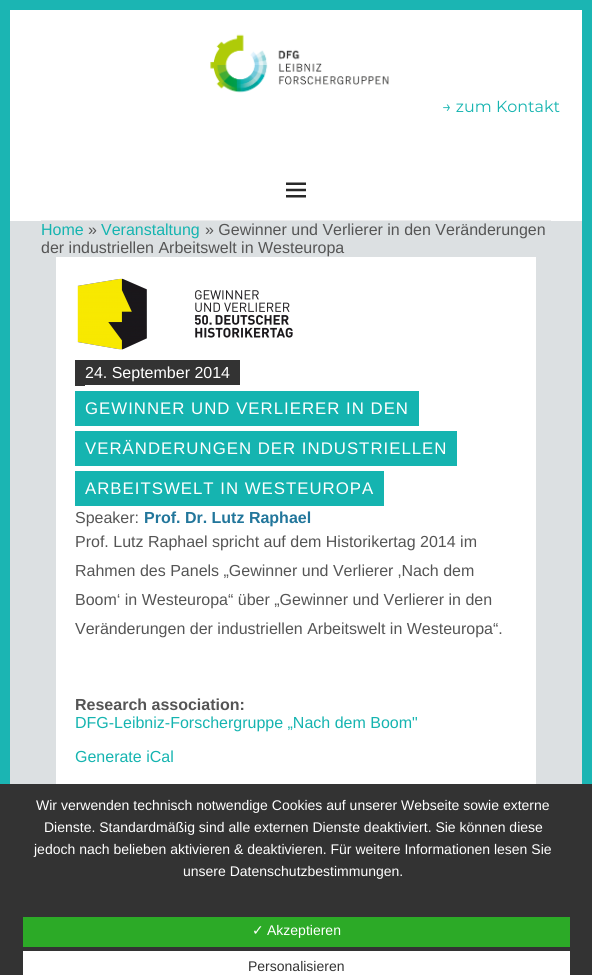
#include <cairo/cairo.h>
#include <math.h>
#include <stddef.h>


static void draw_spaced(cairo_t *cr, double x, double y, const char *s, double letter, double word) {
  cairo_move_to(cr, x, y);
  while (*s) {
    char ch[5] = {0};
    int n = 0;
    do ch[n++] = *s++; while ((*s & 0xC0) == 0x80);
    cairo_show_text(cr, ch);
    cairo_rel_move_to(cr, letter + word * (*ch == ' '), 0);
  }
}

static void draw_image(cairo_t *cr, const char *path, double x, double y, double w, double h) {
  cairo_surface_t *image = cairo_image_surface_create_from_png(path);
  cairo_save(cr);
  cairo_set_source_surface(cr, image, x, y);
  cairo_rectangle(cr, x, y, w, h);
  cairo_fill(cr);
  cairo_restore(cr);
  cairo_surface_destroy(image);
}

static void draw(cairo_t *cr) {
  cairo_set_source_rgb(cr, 1, 1, 1);
  cairo_paint(cr);
  cairo_rectangle(cr, 5, 5, 582, 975);
  cairo_set_source_rgb(cr, 27 / 255.0, 181 / 255.0, 179 / 255.0);
  cairo_set_line_width(cr, 10);
  cairo_stroke(cr);
  draw_image(cr, "images/1.png", 210, 34, 179, 59);
  cairo_set_source_rgb(cr, 237 / 255.0, 237 / 255.0, 238 / 255.0);
  cairo_rectangle(cr, 41, 220, 510, 1);
  cairo_fill(cr);
  draw_image(cr, "images/2.png", 286, 182, 20, 16);
  cairo_set_source_rgb(cr, 220 / 255.0, 224 / 255.0, 226 / 255.0);
  cairo_rectangle(cr, 10, 221, 572, 563);
  cairo_fill(cr);
  cairo_set_source_rgb(cr, 1, 1, 1);
  cairo_rectangle(cr, 56, 257, 480, 527);
  cairo_fill(cr);
  draw_image(cr, "images/3.png", 77, 278, 216, 72);
  cairo_set_source_rgb(cr, 51 / 255.0, 51 / 255.0, 51 / 255.0);
  cairo_rectangle(cr, 75, 360, 10, 26);
  cairo_fill(cr);
  cairo_rectangle(cr, 85, 360, 155, 25);
  cairo_fill(cr);
  cairo_set_source_rgb(cr, 21 / 255.0, 180 / 255.0, 176 / 255.0);
  cairo_rectangle(cr, 75, 391, 10, 35);
  cairo_fill(cr);
  cairo_rectangle(cr, 85, 391, 334, 35);
  cairo_fill(cr);
  cairo_rectangle(cr, 75, 431, 10, 35);
  cairo_fill(cr);
  cairo_rectangle(cr, 85, 431, 372, 35);
  cairo_fill(cr);
  cairo_rectangle(cr, 75, 471, 10, 35);
  cairo_fill(cr);
  cairo_rectangle(cr, 85, 471, 299, 35);
  cairo_fill(cr);
  cairo_set_source_rgb(cr, 51 / 255.0, 51 / 255.0, 51 / 255.0);
  cairo_rectangle(cr, 0, 784, 592, 191);
  cairo_fill(cr);
  cairo_set_source_rgb(cr, 44 / 255.0, 170 / 255.0, 39 / 255.0);
  cairo_rectangle(cr, 23, 917, 547, 30);
  cairo_fill(cr);
  cairo_set_source_rgb(cr, 1, 1, 1);
  cairo_rectangle(cr, 23, 951, 547, 24);
  cairo_fill(cr);
  cairo_select_font_face(cr, "Montserrat", CAIRO_FONT_SLANT_NORMAL, CAIRO_FONT_WEIGHT_NORMAL);
  cairo_set_font_size(cr, 16);
  cairo_set_source_rgb(cr, 21 / 255.0, 180 / 255.0, 176 / 255.0);
  cairo_move_to(cr, 442, 112);
  cairo_show_text(cr, "→ zum Kontakt");
  cairo_select_font_face(cr, "Liberation Sans", CAIRO_FONT_SLANT_NORMAL, CAIRO_FONT_WEIGHT_NORMAL);
  cairo_move_to(cr, 41, 235);
  cairo_show_text(cr, "Home");
  cairo_set_source_rgb(cr, 85 / 255.0, 85 / 255.0, 85 / 255.0);
  cairo_move_to(cr, 88, 235);
  cairo_show_text(cr, "»");
  cairo_set_source_rgb(cr, 21 / 255.0, 180 / 255.0, 176 / 255.0);
  cairo_move_to(cr, 101, 235);
  cairo_show_text(cr, "Veranstaltung");
  cairo_set_source_rgb(cr, 85 / 255.0, 85 / 255.0, 85 / 255.0);
  cairo_move_to(cr, 205, 235);
  cairo_show_text(cr, "» Gewinner und Verlierer in den Veränderungen");
  cairo_move_to(cr, 41, 253);
  cairo_show_text(cr, "der industriellen Arbeitswelt in Westeuropa");
  cairo_set_source_rgb(cr, 1, 1, 1);
  cairo_move_to(cr, 85, 378);
  cairo_show_text(cr, "24. September 2014");
  cairo_set_font_size(cr, 16.8);
  draw_spaced(cr, 85, 414, "GEWINNER UND VERLIERER IN DEN", 1, 0);
  draw_spaced(cr, 85, 454, "VERÄNDERUNGEN DER INDUSTRIELLEN", 1, 0);
  draw_spaced(cr, 85, 494, "ARBEITSWELT IN WESTEUROPA", 1, 0);
  cairo_set_font_size(cr, 16);
  cairo_set_source_rgb(cr, 85 / 255.0, 85 / 255.0, 85 / 255.0);
  cairo_move_to(cr, 75, 523);
  cairo_show_text(cr, "Speaker:");
  cairo_select_font_face(cr, "Liberation Sans", CAIRO_FONT_SLANT_NORMAL, CAIRO_FONT_WEIGHT_BOLD);
  cairo_set_source_rgb(cr, 34 / 255.0, 118 / 255.0, 155 / 255.0);
  cairo_move_to(cr, 144, 523);
  cairo_show_text(cr, "Prof. Dr. Lutz Raphael");
  cairo_select_font_face(cr, "Liberation Sans", CAIRO_FONT_SLANT_NORMAL, CAIRO_FONT_WEIGHT_NORMAL);
  cairo_set_source_rgb(cr, 85 / 255.0, 85 / 255.0, 85 / 255.0);
  cairo_move_to(cr, 75, 547);
  cairo_show_text(cr, "Prof. Lutz Raphael spricht auf dem Historikertag 2014 im");
  cairo_move_to(cr, 75, 576);
  cairo_show_text(cr, "Rahmen des Panels „Gewinner und Verlierer ‚Nach dem");
  cairo_move_to(cr, 75, 605);
  cairo_show_text(cr, "Boom‘ in Westeuropa“ über „Gewinner und Verlierer in den");
  cairo_move_to(cr, 75, 634);
  cairo_show_text(cr, "Veränderungen der industriellen Arbeitswelt in Westeuropa“.");
  cairo_select_font_face(cr, "Liberation Sans", CAIRO_FONT_SLANT_NORMAL, CAIRO_FONT_WEIGHT_BOLD);
  cairo_move_to(cr, 75, 710);
  cairo_show_text(cr, "Research association:");
  cairo_select_font_face(cr, "Liberation Sans", CAIRO_FONT_SLANT_NORMAL, CAIRO_FONT_WEIGHT_NORMAL);
  cairo_set_source_rgb(cr, 21 / 255.0, 180 / 255.0, 176 / 255.0);
  cairo_move_to(cr, 75, 728);
  cairo_show_text(cr, "DFG-Leibniz-Forschergruppe „Nach dem Boom\"");
  cairo_move_to(cr, 75, 762);
  cairo_show_text(cr, "Generate iCal");
  cairo_set_font_size(cr, 14);
  cairo_set_source_rgb(cr, 1, 1, 1);
  cairo_move_to(cr, 36, 810);
  cairo_show_text(cr, "Wir verwenden technisch notwendige Cookies auf unserer Webseite sowie externe");
  cairo_move_to(cr, 44, 832);
  cairo_show_text(cr, "Dienste. Standardmäßig sind alle externen Dienste deaktiviert. Sie können diese");
  cairo_move_to(cr, 34, 854);
  cairo_show_text(cr, "jedoch nach belieben aktivieren & deaktivieren. Für weitere Informationen lesen Sie");
  cairo_move_to(cr, 183, 876);
  cairo_show_text(cr, "unsere Datenschutzbestimmungen.");
  cairo_select_font_face(cr, "DejaVu Sans", CAIRO_FONT_SLANT_NORMAL, CAIRO_FONT_WEIGHT_NORMAL);
  cairo_move_to(cr, 252, 935);
  cairo_show_text(cr, "✓");
  cairo_select_font_face(cr, "Liberation Sans", CAIRO_FONT_SLANT_NORMAL, CAIRO_FONT_WEIGHT_NORMAL);
  cairo_move_to(cr, 267, 935);
  cairo_show_text(cr, "Akzeptieren");
  cairo_set_source_rgb(cr, 51 / 255.0, 51 / 255.0, 51 / 255.0);
  cairo_move_to(cr, 248, 971);
  cairo_show_text(cr, "Personalisieren");
}

int main(void) {
  cairo_surface_t *surface = cairo_image_surface_create(CAIRO_FORMAT_RGB24, 592, 975);
  cairo_t *cr = cairo_create(surface);
  cairo_font_options_t *options = cairo_font_options_create();
  cairo_font_options_set_hint_metrics(options, CAIRO_HINT_METRICS_OFF);
  cairo_font_options_set_hint_style(options, CAIRO_HINT_STYLE_NONE);
  cairo_set_font_options(cr, options);
  cairo_set_miter_limit(cr, 4);
  draw(cr);
  cairo_surface_write_to_png(surface, "out.png");
  cairo_font_options_destroy(options);
  cairo_destroy(cr);
  cairo_surface_destroy(surface);
  return 0;
}
